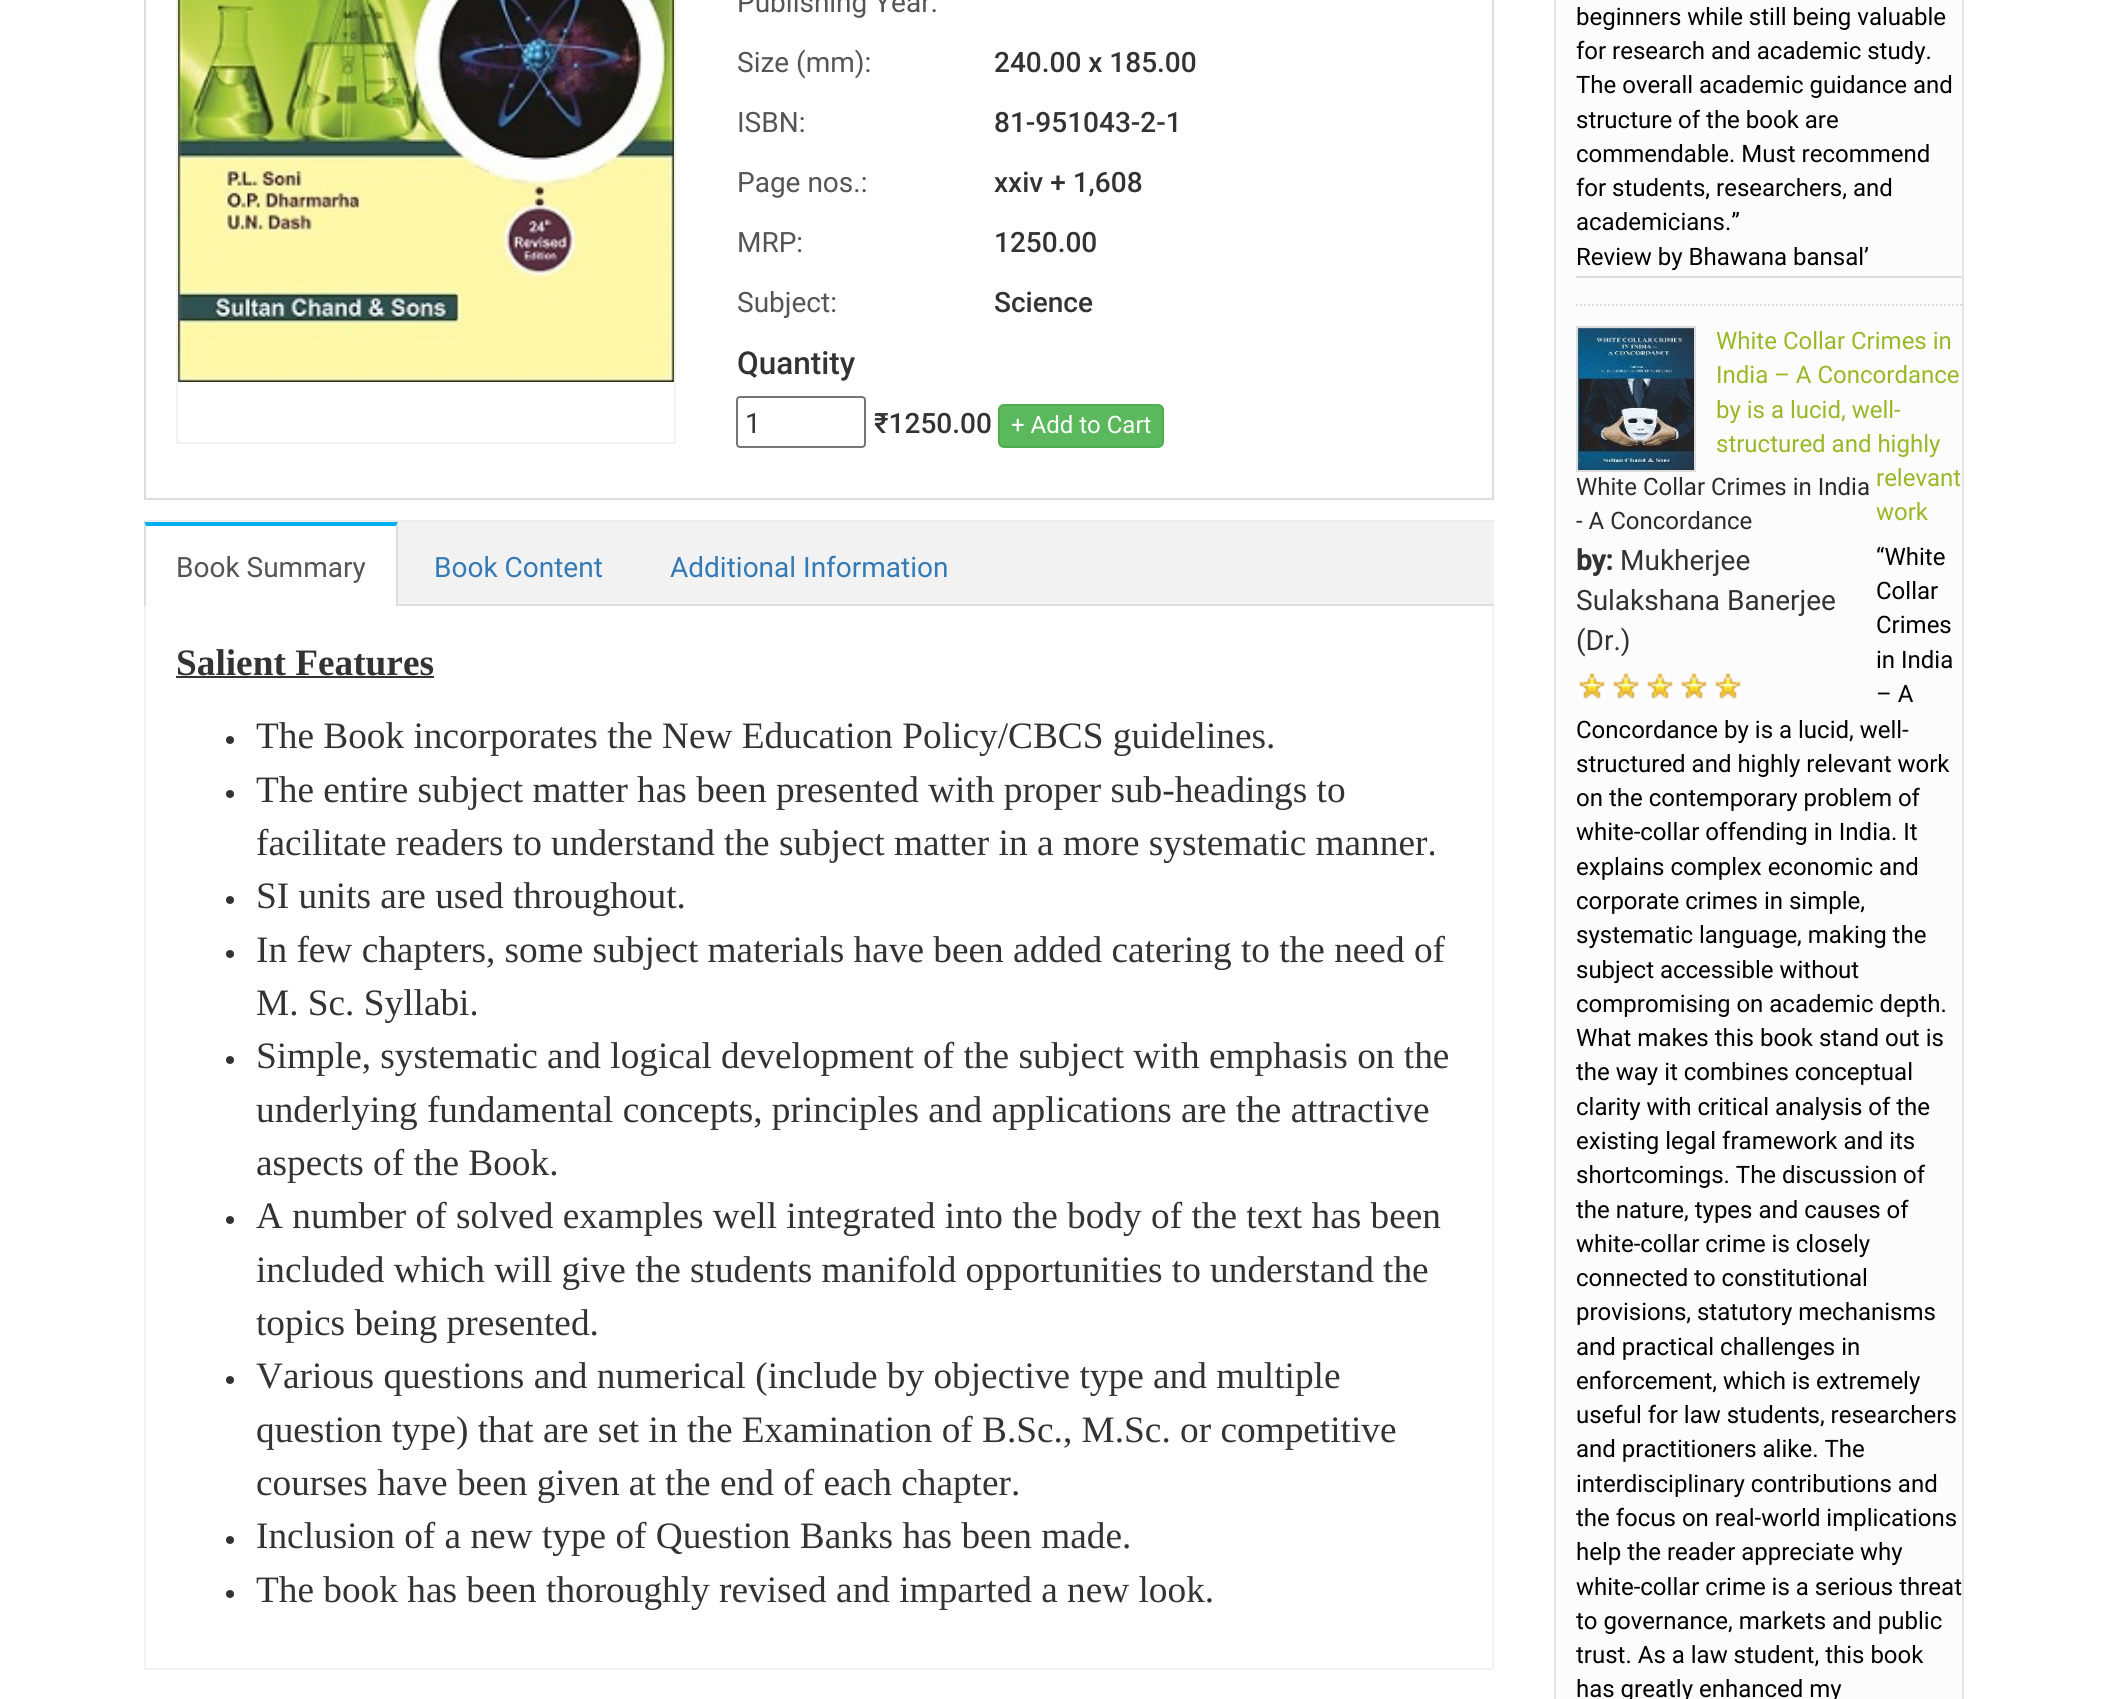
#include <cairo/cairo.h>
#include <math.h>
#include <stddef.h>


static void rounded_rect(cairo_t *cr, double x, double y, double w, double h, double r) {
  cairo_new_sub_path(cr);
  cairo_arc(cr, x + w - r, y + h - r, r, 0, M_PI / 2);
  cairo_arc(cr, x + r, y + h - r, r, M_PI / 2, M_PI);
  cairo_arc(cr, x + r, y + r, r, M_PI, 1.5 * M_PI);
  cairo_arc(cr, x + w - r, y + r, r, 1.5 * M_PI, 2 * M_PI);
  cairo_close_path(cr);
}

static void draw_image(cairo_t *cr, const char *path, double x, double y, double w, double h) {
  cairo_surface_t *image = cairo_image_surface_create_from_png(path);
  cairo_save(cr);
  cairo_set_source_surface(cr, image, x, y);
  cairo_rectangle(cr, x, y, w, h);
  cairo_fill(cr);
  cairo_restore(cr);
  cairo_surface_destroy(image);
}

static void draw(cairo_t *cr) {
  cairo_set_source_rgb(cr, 1, 1, 1);
  cairo_paint(cr);
  cairo_set_source_rgb(cr, 221 / 255.0, 221 / 255.0, 221 / 255.0);
  cairo_rectangle(cr, 1492, 0, 2, 500);
  cairo_fill(cr);
  cairo_rectangle(cr, 144, 498, 1350, 2);
  cairo_fill(cr);
  cairo_rectangle(cr, 144, 0, 2, 500);
  cairo_fill(cr);
  cairo_rectangle(cr, 177, -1, 498, 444);
  cairo_set_source_rgb(cr, 242 / 255.0, 242 / 255.0, 242 / 255.0);
  cairo_stroke(cr);
  draw_image(cr, "images/1.png", 178, 0, 496, 382);
  rounded_rect(cr, 737, 397, 128, 50, 3);
  cairo_set_source_rgb(cr, 118 / 255.0, 118 / 255.0, 118 / 255.0);
  cairo_stroke(cr);
  cairo_set_source_rgb(cr, 92 / 255.0, 184 / 255.0, 92 / 255.0);
  rounded_rect(cr, 999, 405, 164, 42, 5);
  cairo_fill_preserve(cr);
  cairo_set_source_rgb(cr, 76 / 255.0, 174 / 255.0, 76 / 255.0);
  cairo_stroke(cr);
  cairo_set_source_rgb(cr, 242 / 255.0, 242 / 255.0, 242 / 255.0);
  cairo_rectangle(cr, 398, 522, 1096, 82);
  cairo_fill(cr);
  cairo_set_source_rgb(cr, 236 / 255.0, 236 / 255.0, 236 / 255.0);
  cairo_rectangle(cr, 144, 520, 1350, 2);
  cairo_fill(cr);
  cairo_set_source_rgb(cr, 221 / 255.0, 221 / 255.0, 221 / 255.0);
  cairo_rectangle(cr, 398, 604, 1096, 2);
  cairo_fill(cr);
  cairo_set_source_rgb(cr, 0, 175 / 255.0, 239 / 255.0);
  cairo_new_path(cr);
  cairo_move_to(cr, 144, 522);
  cairo_line_to(cr, 398, 522);
  cairo_line_to(cr, 396, 526);
  cairo_line_to(cr, 146, 526);
  cairo_close_path(cr);
  cairo_fill(cr);
  cairo_set_source_rgb(cr, 221 / 255.0, 221 / 255.0, 221 / 255.0);
  cairo_new_path(cr);
  cairo_move_to(cr, 398, 522);
  cairo_line_to(cr, 398, 606);
  cairo_line_to(cr, 396, 606);
  cairo_line_to(cr, 396, 526);
  cairo_close_path(cr);
  cairo_fill(cr);
  cairo_new_path(cr);
  cairo_move_to(cr, 144, 606);
  cairo_line_to(cr, 144, 522);
  cairo_line_to(cr, 146, 526);
  cairo_line_to(cr, 146, 606);
  cairo_close_path(cr);
  cairo_fill(cr);
  cairo_set_source_rgb(cr, 242 / 255.0, 242 / 255.0, 242 / 255.0);
  cairo_rectangle(cr, 1492, 606, 2, 1064);
  cairo_fill(cr);
  cairo_rectangle(cr, 144, 1668, 1350, 2);
  cairo_fill(cr);
  cairo_rectangle(cr, 144, 606, 2, 1064);
  cairo_fill(cr);
  cairo_set_source_rgb(cr, 51 / 255.0, 51 / 255.0, 51 / 255.0);
  cairo_rectangle(cr, 176, 676, 258, 2);
  cairo_fill(cr);
  cairo_arc(cr, 230, 740, 4, 0, 2 * M_PI);
  cairo_fill(cr);
  cairo_arc(cr, 230, 794, 4, 0, 2 * M_PI);
  cairo_fill(cr);
  cairo_arc(cr, 230, 900, 4, 0, 2 * M_PI);
  cairo_fill(cr);
  cairo_arc(cr, 230, 954, 4, 0, 2 * M_PI);
  cairo_fill(cr);
  cairo_arc(cr, 230, 1060, 4, 0, 2 * M_PI);
  cairo_fill(cr);
  cairo_arc(cr, 230, 1220, 4, 0, 2 * M_PI);
  cairo_fill(cr);
  cairo_arc(cr, 230, 1380, 4, 0, 2 * M_PI);
  cairo_fill(cr);
  cairo_arc(cr, 230, 1540, 4, 0, 2 * M_PI);
  cairo_fill(cr);
  cairo_arc(cr, 230, 1594, 4, 0, 2 * M_PI);
  cairo_fill(cr);
  cairo_set_source_rgb(cr, 252 / 255.0, 252 / 255.0, 252 / 255.0);
  cairo_rectangle(cr, 1556, 0, 406, 1699);
  cairo_fill(cr);
  cairo_set_source_rgb(cr, 229 / 255.0, 229 / 255.0, 229 / 255.0);
  cairo_rectangle(cr, 1962, 0, 2, 1699);
  cairo_fill(cr);
  cairo_rectangle(cr, 1554, 0, 2, 1699);
  cairo_fill(cr);
  cairo_set_source_rgb(cr, 221 / 255.0, 221 / 255.0, 221 / 255.0);
  cairo_rectangle(cr, 1576, 276, 386, 2);
  cairo_fill(cr);
  cairo_new_path(cr);
  cairo_move_to(cr, 1576, 305);
  cairo_line_to(cr, 1962, 305);
  cairo_set_source_rgb(cr, 220 / 255.0, 220 / 255.0, 220 / 255.0);
  cairo_set_dash(cr, (double[]){2, 2}, 2, 0);
  cairo_stroke(cr);
  cairo_rectangle(cr, 1577, 327, 118, 144);
  cairo_set_dash(cr, NULL, 0, 0);
  cairo_stroke(cr);
  draw_image(cr, "images/2.png", 1578, 328, 116, 142);
  draw_image(cr, "images/3.png", 1579, 673, 26, 26);
  draw_image(cr, "images/3.png", 1613, 673, 26, 26);
  draw_image(cr, "images/3.png", 1647, 673, 26, 26);
  draw_image(cr, "images/3.png", 1681, 673, 26, 26);
  draw_image(cr, "images/3.png", 1715, 673, 26, 26);
  cairo_select_font_face(cr, "Roboto", CAIRO_FONT_SLANT_NORMAL, CAIRO_FONT_WEIGHT_NORMAL);
  cairo_set_font_size(cr, 28);
  cairo_set_source_rgb(cr, 85 / 255.0, 85 / 255.0, 85 / 255.0);
  cairo_move_to(cr, 737, 12);
  cairo_show_text(cr, "Publishing Year:");
  cairo_move_to(cr, 737, 72);
  cairo_show_text(cr, "Size (mm):");
  cairo_select_font_face(cr, "Roboto Medium", CAIRO_FONT_SLANT_NORMAL, CAIRO_FONT_WEIGHT_NORMAL);
  cairo_set_source_rgb(cr, 51 / 255.0, 51 / 255.0, 51 / 255.0);
  cairo_move_to(cr, 994, 72);
  cairo_show_text(cr, "240.00 x 185.00");
  cairo_select_font_face(cr, "Roboto", CAIRO_FONT_SLANT_NORMAL, CAIRO_FONT_WEIGHT_NORMAL);
  cairo_set_source_rgb(cr, 85 / 255.0, 85 / 255.0, 85 / 255.0);
  cairo_move_to(cr, 737, 132);
  cairo_show_text(cr, "ISBN:");
  cairo_select_font_face(cr, "Roboto Medium", CAIRO_FONT_SLANT_NORMAL, CAIRO_FONT_WEIGHT_NORMAL);
  cairo_set_source_rgb(cr, 51 / 255.0, 51 / 255.0, 51 / 255.0);
  cairo_move_to(cr, 994, 132);
  cairo_show_text(cr, "81-951043-2-1");
  cairo_select_font_face(cr, "Roboto", CAIRO_FONT_SLANT_NORMAL, CAIRO_FONT_WEIGHT_NORMAL);
  cairo_set_source_rgb(cr, 85 / 255.0, 85 / 255.0, 85 / 255.0);
  cairo_move_to(cr, 737, 192);
  cairo_show_text(cr, "Page nos.:");
  cairo_select_font_face(cr, "Roboto Medium", CAIRO_FONT_SLANT_NORMAL, CAIRO_FONT_WEIGHT_NORMAL);
  cairo_set_source_rgb(cr, 51 / 255.0, 51 / 255.0, 51 / 255.0);
  cairo_move_to(cr, 994, 192);
  cairo_show_text(cr, "xxiv + 1,608");
  cairo_select_font_face(cr, "Roboto", CAIRO_FONT_SLANT_NORMAL, CAIRO_FONT_WEIGHT_NORMAL);
  cairo_set_source_rgb(cr, 85 / 255.0, 85 / 255.0, 85 / 255.0);
  cairo_move_to(cr, 737, 252);
  cairo_show_text(cr, "MRP:");
  cairo_select_font_face(cr, "Roboto Medium", CAIRO_FONT_SLANT_NORMAL, CAIRO_FONT_WEIGHT_NORMAL);
  cairo_set_source_rgb(cr, 51 / 255.0, 51 / 255.0, 51 / 255.0);
  cairo_move_to(cr, 994, 252);
  cairo_show_text(cr, "1250.00");
  cairo_select_font_face(cr, "Roboto", CAIRO_FONT_SLANT_NORMAL, CAIRO_FONT_WEIGHT_NORMAL);
  cairo_set_source_rgb(cr, 85 / 255.0, 85 / 255.0, 85 / 255.0);
  cairo_move_to(cr, 737, 312);
  cairo_show_text(cr, "Subject:");
  cairo_select_font_face(cr, "Roboto Medium", CAIRO_FONT_SLANT_NORMAL, CAIRO_FONT_WEIGHT_NORMAL);
  cairo_set_source_rgb(cr, 51 / 255.0, 51 / 255.0, 51 / 255.0);
  cairo_move_to(cr, 994, 312);
  cairo_show_text(cr, "Science");
  cairo_set_font_size(cr, 31.5);
  cairo_move_to(cr, 737, 374);
  cairo_show_text(cr, "Quantity");
  cairo_select_font_face(cr, "Roboto", CAIRO_FONT_SLANT_NORMAL, CAIRO_FONT_WEIGHT_NORMAL);
  cairo_set_font_size(cr, 28);
  cairo_move_to(cr, 745, 433);
  cairo_show_text(cr, "1");
  cairo_select_font_face(cr, "Roboto Medium", CAIRO_FONT_SLANT_NORMAL, CAIRO_FONT_WEIGHT_NORMAL);
  cairo_move_to(cr, 874, 433);
  cairo_show_text(cr, "₹1250.00");
  cairo_select_font_face(cr, "Roboto", CAIRO_FONT_SLANT_NORMAL, CAIRO_FONT_WEIGHT_NORMAL);
  cairo_set_font_size(cr, 24);
  cairo_set_source_rgb(cr, 1, 1, 1);
  cairo_move_to(cr, 1011, 433);
  cairo_show_text(cr, "+ Add to Cart");
  cairo_set_font_size(cr, 28);
  cairo_set_source_rgb(cr, 85 / 255.0, 85 / 255.0, 85 / 255.0);
  cairo_move_to(cr, 176, 577);
  cairo_show_text(cr, "Book Summary");
  cairo_set_source_rgb(cr, 51 / 255.0, 122 / 255.0, 183 / 255.0);
  cairo_move_to(cr, 434, 577);
  cairo_show_text(cr, "Book Content");
  cairo_move_to(cr, 670, 577);
  cairo_show_text(cr, "Additional Information");
  cairo_select_font_face(cr, "Liberation Serif", CAIRO_FONT_SLANT_NORMAL, CAIRO_FONT_WEIGHT_BOLD);
  cairo_set_font_size(cr, 37.3);
  cairo_set_source_rgb(cr, 51 / 255.0, 51 / 255.0, 51 / 255.0);
  cairo_move_to(cr, 176, 675);
  cairo_show_text(cr, "Salient Features");
  cairo_select_font_face(cr, "Liberation Serif", CAIRO_FONT_SLANT_NORMAL, CAIRO_FONT_WEIGHT_NORMAL);
  cairo_move_to(cr, 256, 748);
  cairo_show_text(cr, "The Book incorporates the New Education Policy/CBCS guidelines.");
  cairo_move_to(cr, 256, 802);
  cairo_show_text(cr, "The entire subject matter has been presented with proper sub-headings to");
  cairo_move_to(cr, 256, 855);
  cairo_show_text(cr, "facilitate readers to understand the subject matter in a more systematic manner.");
  cairo_move_to(cr, 256, 908);
  cairo_show_text(cr, "SI units are used throughout.");
  cairo_move_to(cr, 256, 962);
  cairo_show_text(cr, "In few chapters, some subject materials have been added catering to the need of");
  cairo_move_to(cr, 256, 1015);
  cairo_show_text(cr, "M. Sc. Syllabi.");
  cairo_move_to(cr, 256, 1068);
  cairo_show_text(cr, "Simple, systematic and logical development of the subject with emphasis on the");
  cairo_move_to(cr, 256, 1122);
  cairo_show_text(cr, "underlying fundamental concepts, principles and applications are the attractive");
  cairo_move_to(cr, 256, 1175);
  cairo_show_text(cr, "aspects of the Book.");
  cairo_move_to(cr, 256, 1228);
  cairo_show_text(cr, "A number of solved examples well integrated into the body of the text has been");
  cairo_move_to(cr, 256, 1282);
  cairo_show_text(cr, "included which will give the students manifold opportunities to understand the");
  cairo_move_to(cr, 256, 1335);
  cairo_show_text(cr, "topics being presented.");
  cairo_move_to(cr, 256, 1388);
  cairo_show_text(cr, "Various questions and numerical (include by objective type and multiple");
  cairo_move_to(cr, 256, 1442);
  cairo_show_text(cr, "question type) that are set in the Examination of B.Sc., M.Sc. or competitive");
  cairo_move_to(cr, 256, 1495);
  cairo_show_text(cr, "courses have been given at the end of each chapter.");
  cairo_move_to(cr, 256, 1548);
  cairo_show_text(cr, "Inclusion of a new type of Question Banks has been made.");
  cairo_move_to(cr, 256, 1602);
  cairo_show_text(cr, "The book has been thoroughly revised and imparted a new look.");
  cairo_select_font_face(cr, "Roboto", CAIRO_FONT_SLANT_NORMAL, CAIRO_FONT_WEIGHT_NORMAL);
  cairo_set_font_size(cr, 24);
  cairo_set_source_rgb(cr, 0, 0, 0);
  cairo_move_to(cr, 1576, 25);
  cairo_show_text(cr, "beginners while still being valuable");
  cairo_move_to(cr, 1576, 59);
  cairo_show_text(cr, "for research and academic study.");
  cairo_move_to(cr, 1576, 93);
  cairo_show_text(cr, "The overall academic guidance and");
  cairo_move_to(cr, 1576, 128);
  cairo_show_text(cr, "structure of the book are");
  cairo_move_to(cr, 1576, 162);
  cairo_show_text(cr, "commendable. Must recommend");
  cairo_move_to(cr, 1576, 196);
  cairo_show_text(cr, "for students, researchers, and");
  cairo_move_to(cr, 1576, 230);
  cairo_show_text(cr, "academicians.”");
  cairo_move_to(cr, 1576, 265);
  cairo_show_text(cr, "Review by Bhawana bansal’");
  cairo_set_source_rgb(cr, 152 / 255.0, 184 / 255.0, 39 / 255.0);
  cairo_move_to(cr, 1716, 349);
  cairo_show_text(cr, "White Collar Crimes in");
  cairo_move_to(cr, 1716, 383);
  cairo_show_text(cr, "India – A Concordance");
  cairo_move_to(cr, 1716, 418);
  cairo_show_text(cr, "by is a lucid, well-");
  cairo_move_to(cr, 1716, 452);
  cairo_show_text(cr, "structured and highly");
  cairo_move_to(cr, 1876, 486);
  cairo_show_text(cr, "relevant");
  cairo_move_to(cr, 1876, 520);
  cairo_show_text(cr, "work");
  cairo_set_source_rgb(cr, 44 / 255.0, 44 / 255.0, 44 / 255.0);
  cairo_move_to(cr, 1576, 495);
  cairo_show_text(cr, "White Collar Crimes in India");
  cairo_move_to(cr, 1576, 529);
  cairo_show_text(cr, "- A Concordance");
  cairo_select_font_face(cr, "Roboto", CAIRO_FONT_SLANT_NORMAL, CAIRO_FONT_WEIGHT_BOLD);
  cairo_set_font_size(cr, 28);
  cairo_set_source_rgb(cr, 51 / 255.0, 51 / 255.0, 51 / 255.0);
  cairo_move_to(cr, 1576, 570);
  cairo_show_text(cr, "by:");
  cairo_select_font_face(cr, "Roboto", CAIRO_FONT_SLANT_NORMAL, CAIRO_FONT_WEIGHT_NORMAL);
  cairo_move_to(cr, 1620, 570);
  cairo_show_text(cr, "Mukherjee");
  cairo_move_to(cr, 1576, 610);
  cairo_show_text(cr, "Sulakshana Banerjee");
  cairo_move_to(cr, 1576, 650);
  cairo_show_text(cr, "(Dr.)");
  cairo_set_font_size(cr, 24);
  cairo_set_source_rgb(cr, 0, 0, 0);
  cairo_move_to(cr, 1876, 565);
  cairo_show_text(cr, "“White");
  cairo_move_to(cr, 1876, 599);
  cairo_show_text(cr, "Collar");
  cairo_move_to(cr, 1876, 633);
  cairo_show_text(cr, "Crimes");
  cairo_move_to(cr, 1876, 668);
  cairo_show_text(cr, "in India");
  cairo_move_to(cr, 1876, 702);
  cairo_show_text(cr, "– A");
  cairo_move_to(cr, 1576, 738);
  cairo_show_text(cr, "Concordance by is a lucid, well-");
  cairo_move_to(cr, 1576, 772);
  cairo_show_text(cr, "structured and highly relevant work");
  cairo_move_to(cr, 1576, 806);
  cairo_show_text(cr, "on the contemporary problem of");
  cairo_move_to(cr, 1576, 840);
  cairo_show_text(cr, "white-collar offending in India. It");
  cairo_move_to(cr, 1576, 875);
  cairo_show_text(cr, "explains complex economic and");
  cairo_move_to(cr, 1576, 909);
  cairo_show_text(cr, "corporate crimes in simple,");
  cairo_move_to(cr, 1576, 943);
  cairo_show_text(cr, "systematic language, making the");
  cairo_move_to(cr, 1576, 978);
  cairo_show_text(cr, "subject accessible without");
  cairo_move_to(cr, 1576, 1012);
  cairo_show_text(cr, "compromising on academic depth.");
  cairo_move_to(cr, 1576, 1046);
  cairo_show_text(cr, "What makes this book stand out is");
  cairo_move_to(cr, 1576, 1080);
  cairo_show_text(cr, "the way it combines conceptual");
  cairo_move_to(cr, 1576, 1115);
  cairo_show_text(cr, "clarity with critical analysis of the");
  cairo_move_to(cr, 1576, 1149);
  cairo_show_text(cr, "existing legal framework and its");
  cairo_move_to(cr, 1576, 1183);
  cairo_show_text(cr, "shortcomings. The discussion of");
  cairo_move_to(cr, 1576, 1218);
  cairo_show_text(cr, "the nature, types and causes of");
  cairo_move_to(cr, 1576, 1252);
  cairo_show_text(cr, "white-collar crime is closely");
  cairo_move_to(cr, 1576, 1286);
  cairo_show_text(cr, "connected to constitutional");
  cairo_move_to(cr, 1576, 1320);
  cairo_show_text(cr, "provisions, statutory mechanisms");
  cairo_move_to(cr, 1576, 1355);
  cairo_show_text(cr, "and practical challenges in");
  cairo_move_to(cr, 1576, 1389);
  cairo_show_text(cr, "enforcement, which is extremely");
  cairo_move_to(cr, 1576, 1423);
  cairo_show_text(cr, "useful for law students, researchers");
  cairo_move_to(cr, 1576, 1457);
  cairo_show_text(cr, "and practitioners alike. The");
  cairo_move_to(cr, 1576, 1492);
  cairo_show_text(cr, "interdisciplinary contributions and");
  cairo_move_to(cr, 1576, 1526);
  cairo_show_text(cr, "the focus on real-world implications");
  cairo_move_to(cr, 1576, 1560);
  cairo_show_text(cr, "help the reader appreciate why");
  cairo_move_to(cr, 1576, 1595);
  cairo_show_text(cr, "white-collar crime is a serious threat");
  cairo_move_to(cr, 1576, 1629);
  cairo_show_text(cr, "to governance, markets and public");
  cairo_move_to(cr, 1576, 1663);
  cairo_show_text(cr, "trust. As a law student, this book");
  cairo_move_to(cr, 1576, 1697);
  cairo_show_text(cr, "has greatly enhanced my");
}

int main(void) {
  cairo_surface_t *surface = cairo_image_surface_create(CAIRO_FORMAT_RGB24, 2108, 1699);
  cairo_t *cr = cairo_create(surface);
  cairo_font_options_t *options = cairo_font_options_create();
  cairo_font_options_set_hint_metrics(options, CAIRO_HINT_METRICS_OFF);
  cairo_font_options_set_hint_style(options, CAIRO_HINT_STYLE_NONE);
  cairo_set_font_options(cr, options);
  cairo_set_miter_limit(cr, 4);
  draw(cr);
  cairo_surface_write_to_png(surface, "out.png");
  cairo_font_options_destroy(options);
  cairo_destroy(cr);
  cairo_surface_destroy(surface);
  return 0;
}
